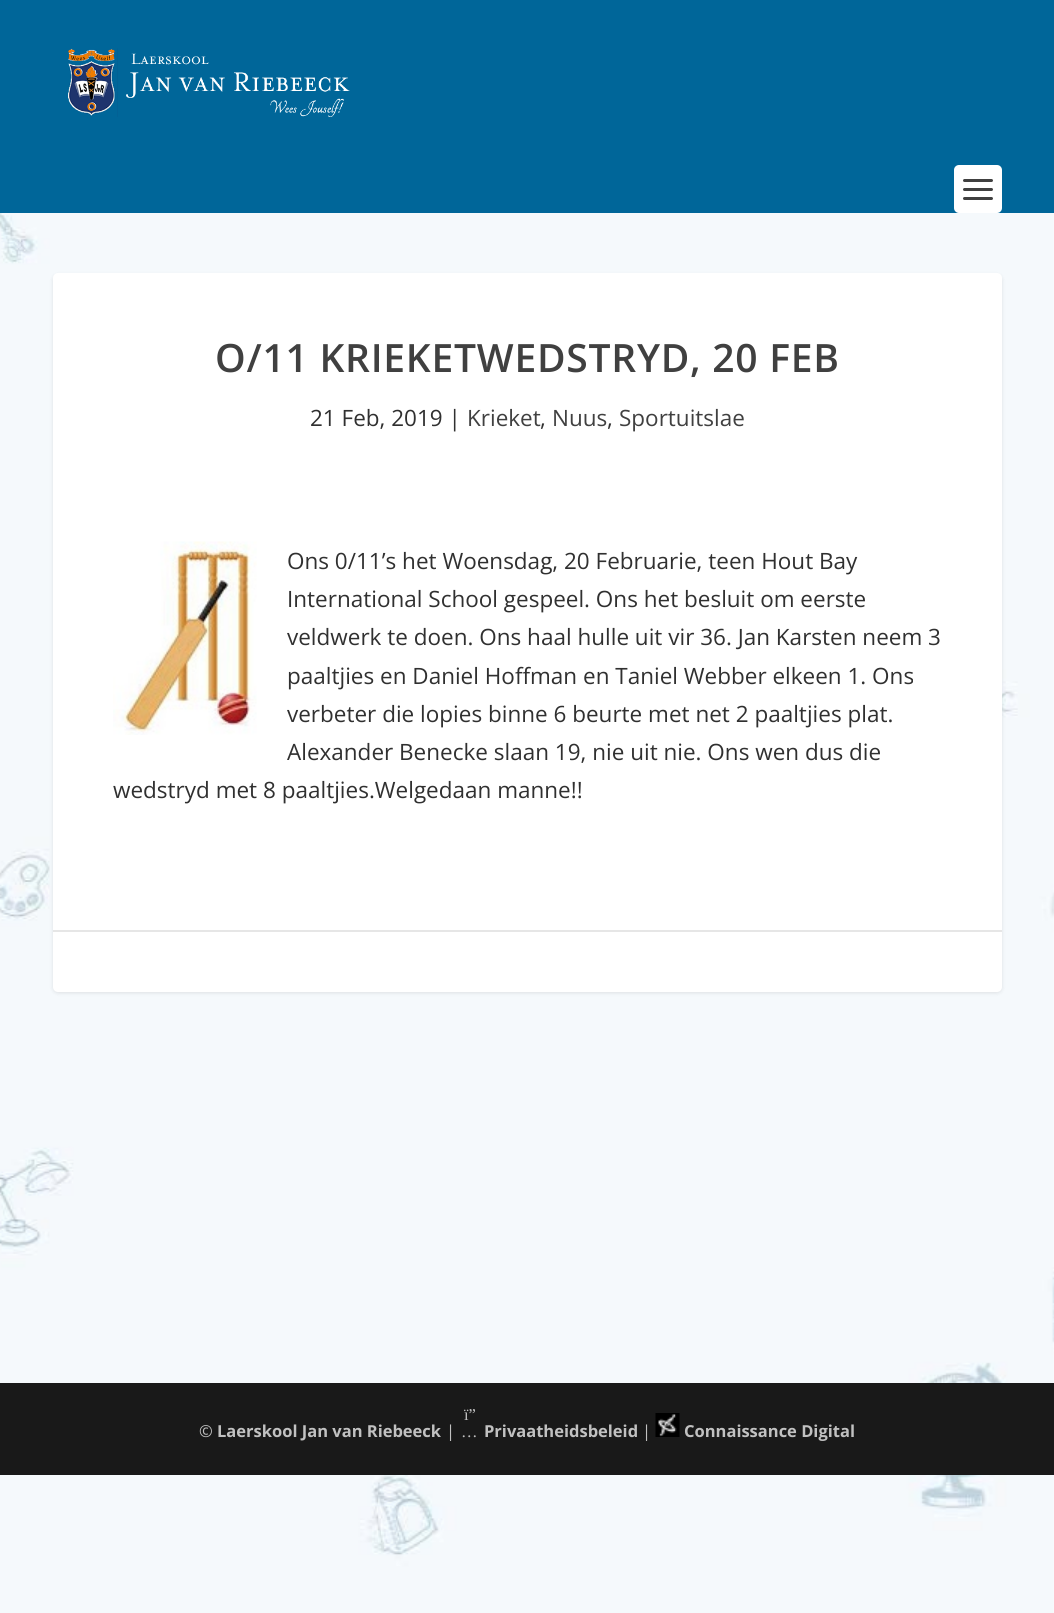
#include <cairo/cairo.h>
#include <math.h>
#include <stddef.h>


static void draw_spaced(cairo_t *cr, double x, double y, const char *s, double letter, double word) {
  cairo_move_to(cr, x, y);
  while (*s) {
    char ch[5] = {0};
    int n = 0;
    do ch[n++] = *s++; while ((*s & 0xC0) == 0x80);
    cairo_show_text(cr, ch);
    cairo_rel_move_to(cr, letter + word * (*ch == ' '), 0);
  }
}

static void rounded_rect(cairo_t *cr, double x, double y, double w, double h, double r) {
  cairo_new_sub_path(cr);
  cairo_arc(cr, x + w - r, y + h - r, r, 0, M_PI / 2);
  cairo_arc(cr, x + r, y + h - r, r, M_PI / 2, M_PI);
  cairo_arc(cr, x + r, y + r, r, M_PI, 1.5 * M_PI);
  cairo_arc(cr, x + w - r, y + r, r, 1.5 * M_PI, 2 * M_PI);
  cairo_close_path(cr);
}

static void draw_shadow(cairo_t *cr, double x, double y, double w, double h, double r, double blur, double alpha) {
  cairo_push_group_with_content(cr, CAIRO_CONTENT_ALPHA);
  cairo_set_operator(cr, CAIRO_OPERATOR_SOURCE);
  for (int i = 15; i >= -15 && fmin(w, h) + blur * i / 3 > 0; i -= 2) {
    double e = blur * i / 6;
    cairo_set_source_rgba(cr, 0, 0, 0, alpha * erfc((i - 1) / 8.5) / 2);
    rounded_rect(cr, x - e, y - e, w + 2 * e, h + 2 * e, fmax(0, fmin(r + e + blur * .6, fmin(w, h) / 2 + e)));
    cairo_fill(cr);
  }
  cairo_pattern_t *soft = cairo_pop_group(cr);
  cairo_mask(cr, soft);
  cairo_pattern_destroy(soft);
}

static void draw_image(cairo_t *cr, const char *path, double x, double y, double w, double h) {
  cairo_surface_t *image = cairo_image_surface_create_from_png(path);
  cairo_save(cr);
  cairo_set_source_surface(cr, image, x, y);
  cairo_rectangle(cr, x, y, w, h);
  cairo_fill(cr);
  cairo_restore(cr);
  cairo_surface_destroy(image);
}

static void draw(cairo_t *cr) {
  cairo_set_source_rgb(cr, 1, 1, 1);
  cairo_paint(cr);
  draw_image(cr, "images/1.png", 0, 213, 1054, 1400);
  cairo_set_source_rgb(cr, 0, 102 / 255.0, 153 / 255.0);
  cairo_rectangle(cr, 0, 0, 1054, 213);
  cairo_fill(cr);
  draw_image(cr, "images/2.png", 68, 48, 282, 69);
  cairo_set_source_rgb(cr, 1, 1, 1);
  rounded_rect(cr, 954, 165, 48, 48, 5);
  cairo_fill(cr);
  cairo_set_source_rgb(cr, 64 / 255.0, 64 / 255.0, 64 / 255.0);
  rounded_rect(cr, 963, 179, 30, 3, 1.5);
  cairo_fill(cr);
  rounded_rect(cr, 963, 188, 30, 3, 1.5);
  cairo_fill(cr);
  rounded_rect(cr, 963, 197, 30, 3, 1.5);
  cairo_fill(cr);
  cairo_set_source_rgb(cr, 0, 0, 0);
  draw_shadow(cr, 53, 275, 949, 718, 5, 2, 0.1);
  cairo_set_source_rgb(cr, 1, 1, 1);
  rounded_rect(cr, 53, 273, 949, 719, 5);
  cairo_fill(cr);
  draw_image(cr, "images/3.png", 113, 541, 144, 194);
  cairo_set_source_rgb(cr, 230 / 255.0, 230 / 255.0, 230 / 255.0);
  cairo_rectangle(cr, 53, 930, 949, 2);
  cairo_fill(cr);
  cairo_set_source_rgb(cr, 25 / 255.0, 25 / 255.0, 25 / 255.0);
  cairo_rectangle(cr, 0, 1383, 1054, 92);
  cairo_fill(cr);
  draw_image(cr, "images/4.png", 655, 1413, 25, 24);
  cairo_select_font_face(cr, "Open Sans SemiBold", CAIRO_FONT_SLANT_NORMAL, CAIRO_FONT_WEIGHT_NORMAL);
  cairo_set_font_size(cr, 39);
  cairo_set_source_rgb(cr, 64 / 255.0, 64 / 255.0, 64 / 255.0);
  draw_spaced(cr, 215, 372, "O/11 KRIEKETWEDSTRYD, 20 FEB", 0.75, 0);
  cairo_select_font_face(cr, "Open Sans", CAIRO_FONT_SLANT_NORMAL, CAIRO_FONT_WEIGHT_NORMAL);
  cairo_set_font_size(cr, 22.5);
  cairo_set_source_rgb(cr, 48 / 255.0, 48 / 255.0, 48 / 255.0);
  cairo_move_to(cr, 310, 426);
  cairo_show_text(cr, "21 Feb, 2019 |");
  cairo_set_source_rgb(cr, 64 / 255.0, 64 / 255.0, 64 / 255.0);
  cairo_move_to(cr, 467, 426);
  cairo_show_text(cr, "Krieket");
  cairo_set_source_rgb(cr, 48 / 255.0, 48 / 255.0, 48 / 255.0);
  cairo_move_to(cr, 540, 426);
  cairo_show_text(cr, ",");
  cairo_set_source_rgb(cr, 64 / 255.0, 64 / 255.0, 64 / 255.0);
  cairo_move_to(cr, 552, 426);
  cairo_show_text(cr, "Nuus");
  cairo_set_source_rgb(cr, 48 / 255.0, 48 / 255.0, 48 / 255.0);
  cairo_move_to(cr, 607, 426);
  cairo_show_text(cr, ",");
  cairo_set_source_rgb(cr, 64 / 255.0, 64 / 255.0, 64 / 255.0);
  cairo_move_to(cr, 619, 426);
  cairo_show_text(cr, "Sportuitslae");
  cairo_set_source_rgb(cr, 48 / 255.0, 48 / 255.0, 48 / 255.0);
  cairo_move_to(cr, 287, 569);
  cairo_show_text(cr, "Ons 0/11’s het Woensdag, 20 Februarie, teen Hout Bay");
  cairo_move_to(cr, 287, 607);
  cairo_show_text(cr, "International School gespeel. Ons het besluit om eerste");
  cairo_move_to(cr, 287, 645);
  cairo_show_text(cr, "veldwerk te doen. Ons haal hulle uit vir 36. Jan Karsten neem 3");
  cairo_move_to(cr, 287, 684);
  cairo_show_text(cr, "paaltjies en Daniel Hoffman en Taniel Webber elkeen 1. Ons");
  cairo_move_to(cr, 287, 722);
  cairo_show_text(cr, "verbeter die lopies binne 6 beurte met net 2 paaltjies plat.");
  cairo_move_to(cr, 287, 760);
  cairo_show_text(cr, "Alexander Benecke slaan 19, nie uit nie. Ons wen dus die");
  cairo_move_to(cr, 113, 798);
  cairo_show_text(cr, "wedstryd met 8 paaltjies.Welgedaan manne!!");
  cairo_set_font_size(cr, 16.5);
  cairo_set_source_rgb(cr, 193 / 255.0, 193 / 255.0, 193 / 255.0);
  cairo_move_to(cr, 199, 1437);
  cairo_show_text(cr, "©");
  cairo_select_font_face(cr, "Open Sans", CAIRO_FONT_SLANT_NORMAL, CAIRO_FONT_WEIGHT_BOLD);
  cairo_move_to(cr, 217, 1437);
  cairo_show_text(cr, "Laerskool Jan van Riebeeck");
  cairo_select_font_face(cr, "Open Sans", CAIRO_FONT_SLANT_NORMAL, CAIRO_FONT_WEIGHT_NORMAL);
  cairo_move_to(cr, 446, 1437);
  cairo_show_text(cr, "|");
  cairo_select_font_face(cr, "Liberation Serif", CAIRO_FONT_SLANT_NORMAL, CAIRO_FONT_WEIGHT_NORMAL);
  cairo_move_to(cr, 464, 1420);
  cairo_show_text(cr, "ï”");
  cairo_move_to(cr, 461, 1437);
  cairo_show_text(cr, "…");
  cairo_select_font_face(cr, "Open Sans", CAIRO_FONT_SLANT_NORMAL, CAIRO_FONT_WEIGHT_BOLD);
  cairo_move_to(cr, 484, 1437);
  cairo_show_text(cr, "Privaatheidsbeleid");
  cairo_select_font_face(cr, "Open Sans", CAIRO_FONT_SLANT_NORMAL, CAIRO_FONT_WEIGHT_NORMAL);
  cairo_move_to(cr, 642, 1437);
  cairo_show_text(cr, "|");
  cairo_select_font_face(cr, "Open Sans", CAIRO_FONT_SLANT_NORMAL, CAIRO_FONT_WEIGHT_BOLD);
  cairo_move_to(cr, 684, 1437);
  cairo_show_text(cr, "Connaissance Digital");
}

int main(void) {
  cairo_surface_t *surface = cairo_image_surface_create(CAIRO_FORMAT_RGB24, 1054, 1613);
  cairo_t *cr = cairo_create(surface);
  cairo_font_options_t *options = cairo_font_options_create();
  cairo_font_options_set_hint_metrics(options, CAIRO_HINT_METRICS_OFF);
  cairo_font_options_set_hint_style(options, CAIRO_HINT_STYLE_NONE);
  cairo_set_font_options(cr, options);
  cairo_set_miter_limit(cr, 4);
  draw(cr);
  cairo_surface_write_to_png(surface, "out.png");
  cairo_font_options_destroy(options);
  cairo_destroy(cr);
  cairo_surface_destroy(surface);
  return 0;
}
